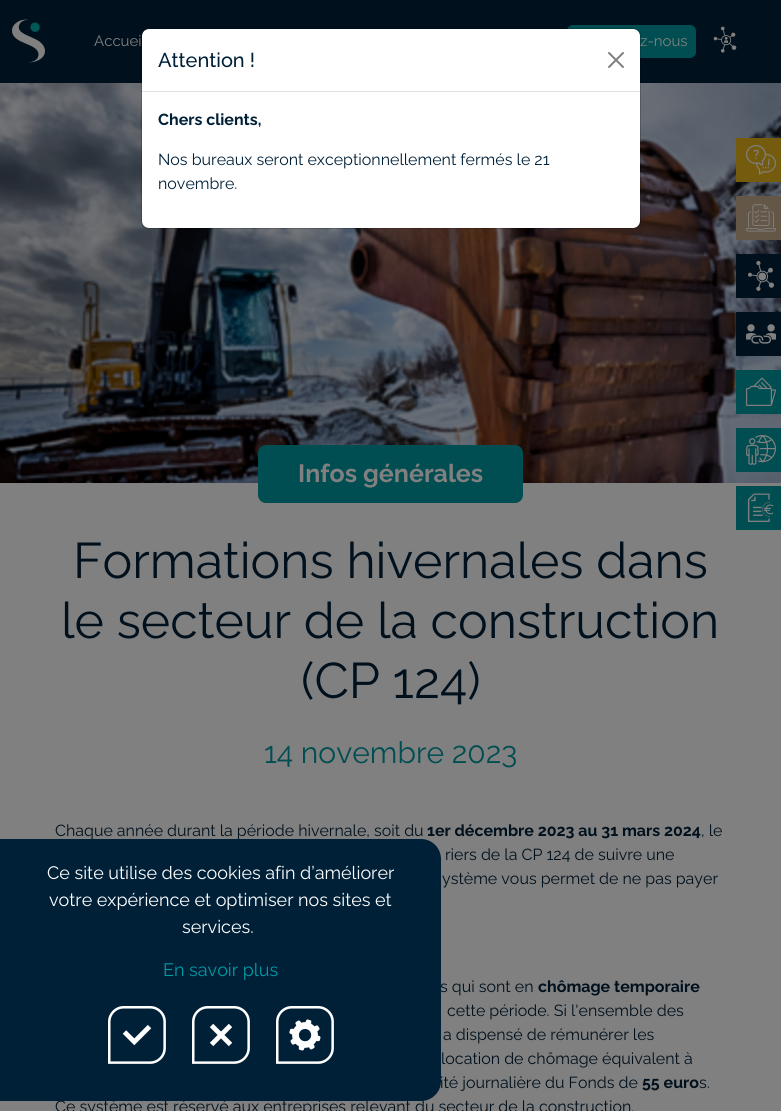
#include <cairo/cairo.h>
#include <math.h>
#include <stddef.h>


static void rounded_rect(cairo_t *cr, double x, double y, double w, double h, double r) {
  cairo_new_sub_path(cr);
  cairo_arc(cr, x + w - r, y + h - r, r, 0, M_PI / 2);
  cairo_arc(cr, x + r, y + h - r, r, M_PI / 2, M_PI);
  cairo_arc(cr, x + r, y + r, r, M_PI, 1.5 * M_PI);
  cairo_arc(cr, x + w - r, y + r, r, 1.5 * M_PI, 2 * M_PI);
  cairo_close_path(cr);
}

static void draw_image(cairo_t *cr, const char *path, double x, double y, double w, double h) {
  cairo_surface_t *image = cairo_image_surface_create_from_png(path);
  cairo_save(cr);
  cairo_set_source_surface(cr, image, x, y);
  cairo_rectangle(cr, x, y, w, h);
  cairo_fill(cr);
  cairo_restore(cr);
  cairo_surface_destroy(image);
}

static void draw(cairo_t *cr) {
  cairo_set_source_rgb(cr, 128 / 255.0, 128 / 255.0, 128 / 255.0);
  cairo_paint(cr);
  cairo_set_source_rgb(cr, 0, 16 / 255.0, 28 / 255.0);
  cairo_rectangle(cr, 0, 0, 781, 83);
  cairo_fill(cr);
  draw_image(cr, "images/1.png", 12, 19, 33, 44);
  cairo_set_source_rgb(cr, 0, 77 / 255.0, 82 / 255.0);
  rounded_rect(cr, 567.5, 25.5, 128, 32, 5.5);
  cairo_fill_preserve(cr);
  cairo_set_line_width(cr, 1);
  cairo_stroke(cr);
  draw_image(cr, "images/2.png", 713, 26, 24, 27);
  draw_image(cr, "images/3.png", 0, 83, 781, 400);
  rounded_rect(cr, 258, 445, 265, 58, 8);
  cairo_fill(cr);
  cairo_set_source_rgb(cr, 117 / 255.0, 91 / 255.0, 14 / 255.0);
  cairo_rectangle(cr, 736, 138, 45, 44);
  cairo_fill(cr);
  draw_image(cr, "images/4.png", 746, 145, 30, 30);
  cairo_set_source_rgb(cr, 100 / 255.0, 87 / 255.0, 72 / 255.0);
  cairo_rectangle(cr, 736, 196, 45, 44);
  cairo_fill(cr);
  draw_image(cr, "images/5.png", 746, 204, 30, 28);
  cairo_set_source_rgb(cr, 0, 16 / 255.0, 28 / 255.0);
  cairo_rectangle(cr, 736, 254, 45, 44);
  cairo_fill(cr);
  draw_image(cr, "images/6.png", 747, 260, 27, 31);
  cairo_rectangle(cr, 736, 312, 45, 44);
  cairo_fill(cr);
  draw_image(cr, "images/7.png", 746, 324, 30, 20);
  cairo_set_source_rgb(cr, 0, 77 / 255.0, 82 / 255.0);
  cairo_rectangle(cr, 736, 370, 45, 44);
  cairo_fill(cr);
  draw_image(cr, "images/8.png", 746, 377, 30, 29);
  cairo_rectangle(cr, 736, 428, 45, 44);
  cairo_fill(cr);
  draw_image(cr, "images/9.png", 746, 435, 30, 30);
  cairo_rectangle(cr, 736, 486, 45, 44);
  cairo_fill(cr);
  draw_image(cr, "images/10.png", 747, 493, 27, 29);
  cairo_set_source_rgb(cr, 1, 1, 1);
  rounded_rect(cr, 142, 29, 498, 199, 7);
  cairo_fill(cr);
  cairo_select_font_face(cr, "Raleway", CAIRO_FONT_SLANT_NORMAL, CAIRO_FONT_WEIGHT_NORMAL);
  cairo_set_font_size(cr, 15);
  cairo_set_source_rgb(cr, 128 / 255.0, 128 / 255.0, 128 / 255.0);
  cairo_move_to(cr, 94, 46);
  cairo_show_text(cr, "Accuei");
  cairo_move_to(cr, 640, 46);
  cairo_show_text(cr, "z-nous");
  cairo_select_font_face(cr, "Raleway", CAIRO_FONT_SLANT_NORMAL, CAIRO_FONT_WEIGHT_BOLD);
  cairo_set_font_size(cr, 25);
  cairo_move_to(cr, 298, 482);
  cairo_show_text(cr, "Infos générales");
  cairo_select_font_face(cr, "Raleway", CAIRO_FONT_SLANT_NORMAL, CAIRO_FONT_WEIGHT_NORMAL);
  cairo_set_font_size(cr, 50);
  cairo_set_source_rgb(cr, 0, 16 / 255.0, 28 / 255.0);
  cairo_move_to(cr, 73, 578);
  cairo_show_text(cr, "Formations hivernales dans");
  cairo_move_to(cr, 61, 638);
  cairo_show_text(cr, "le secteur de la construction");
  cairo_move_to(cr, 301, 698);
  cairo_show_text(cr, "(CP 124)");
  cairo_set_font_size(cr, 30);
  cairo_set_source_rgb(cr, 0, 77 / 255.0, 82 / 255.0);
  cairo_move_to(cr, 264, 763);
  cairo_show_text(cr, "14 novembre 2023");
  cairo_set_font_size(cr, 16);
  cairo_set_source_rgb(cr, 0, 16 / 255.0, 28 / 255.0);
  cairo_move_to(cr, 55, 836);
  cairo_show_text(cr, "Chaque année durant la période hivernale, soit du");
  cairo_select_font_face(cr, "Raleway", CAIRO_FONT_SLANT_NORMAL, CAIRO_FONT_WEIGHT_BOLD);
  cairo_move_to(cr, 427, 836);
  cairo_show_text(cr, "1er décembre 2023 au 31 mars 2024");
  cairo_select_font_face(cr, "Raleway", CAIRO_FONT_SLANT_NORMAL, CAIRO_FONT_WEIGHT_NORMAL);
  cairo_move_to(cr, 701, 836);
  cairo_show_text(cr, ", le");
  cairo_move_to(cr, 445, 860);
  cairo_show_text(cr, "riers de la CP 124 de suivre une");
  cairo_move_to(cr, 442, 884);
  cairo_show_text(cr, "ystème vous permet de ne pas payer");
  cairo_move_to(cr, 440, 992);
  cairo_show_text(cr, "s qui sont en");
  cairo_select_font_face(cr, "Raleway", CAIRO_FONT_SLANT_NORMAL, CAIRO_FONT_WEIGHT_BOLD);
  cairo_move_to(cr, 538, 992);
  cairo_show_text(cr, "chômage temporaire");
  cairo_select_font_face(cr, "Raleway", CAIRO_FONT_SLANT_NORMAL, CAIRO_FONT_WEIGHT_NORMAL);
  cairo_move_to(cr, 447, 1016);
  cairo_show_text(cr, "cette période. Si l'ensemble des");
  cairo_move_to(cr, 443, 1040);
  cairo_show_text(cr, "a dispensé de rémunérer les");
  cairo_move_to(cr, 441, 1064);
  cairo_show_text(cr, "location de chômage équivalent à");
  cairo_move_to(cr, 440, 1088);
  cairo_show_text(cr, "ité journalière du Fonds de");
  cairo_select_font_face(cr, "Raleway", CAIRO_FONT_SLANT_NORMAL, CAIRO_FONT_WEIGHT_BOLD);
  cairo_move_to(cr, 642, 1088);
  cairo_show_text(cr, "55 euro");
  cairo_select_font_face(cr, "Raleway", CAIRO_FONT_SLANT_NORMAL, CAIRO_FONT_WEIGHT_NORMAL);
  cairo_move_to(cr, 699, 1088);
  cairo_show_text(cr, "s.");
  cairo_move_to(cr, 55, 1112);
  cairo_show_text(cr, "Ce système est réservé aux entreprises relevant du secteur de la construction.");
  rounded_rect(cr, 141.5, 28.5, 499, 200, 7.5);
  cairo_set_source_rgba(cr, 0, 0, 0, 0.18);
  cairo_stroke(cr);
  cairo_set_source_rgb(cr, 222 / 255.0, 226 / 255.0, 230 / 255.0);
  cairo_rectangle(cr, 142, 91, 498, 1);
  cairo_fill(cr);
  cairo_select_font_face(cr, "Raleway Medium", CAIRO_FONT_SLANT_NORMAL, CAIRO_FONT_WEIGHT_NORMAL);
  cairo_set_font_size(cr, 20);
  cairo_set_source_rgb(cr, 0, 32 / 255.0, 56 / 255.0);
  cairo_move_to(cr, 158, 67);
  cairo_show_text(cr, "Attention !");
  draw_image(cr, "images/11.png", 608, 52, 16, 16);
  cairo_select_font_face(cr, "Raleway", CAIRO_FONT_SLANT_NORMAL, CAIRO_FONT_WEIGHT_BOLD);
  cairo_set_font_size(cr, 16);
  cairo_move_to(cr, 158, 125);
  cairo_show_text(cr, "Chers clients,");
  cairo_select_font_face(cr, "Raleway", CAIRO_FONT_SLANT_NORMAL, CAIRO_FONT_WEIGHT_NORMAL);
  cairo_move_to(cr, 158, 165);
  cairo_show_text(cr, "Nos bureaux seront exceptionnellement fermés le 21");
  cairo_move_to(cr, 158, 189);
  cairo_show_text(cr, "novembre.");
  cairo_new_path(cr);
  cairo_move_to(cr, 0, 839);
  cairo_line_to(cr, 421, 839);
  cairo_curve_to(cr, 432, 839, 441, 848, 441, 859);
  cairo_line_to(cr, 441, 1081);
  cairo_curve_to(cr, 441, 1092, 432, 1101, 421, 1101);
  cairo_line_to(cr, 0, 1101);
  cairo_close_path(cr);
  cairo_fill(cr);
  cairo_set_font_size(cr, 18);
  cairo_set_source_rgb(cr, 1, 1, 1);
  cairo_move_to(cr, 47, 879);
  cairo_show_text(cr, "Ce site utilise des cookies afin d’améliorer");
  cairo_move_to(cr, 49, 906);
  cairo_show_text(cr, "votre expérience et optimiser nos sites et");
  cairo_move_to(cr, 182, 933);
  cairo_show_text(cr, "services.");
  cairo_set_source_rgb(cr, 0, 154 / 255.0, 163 / 255.0);
  cairo_move_to(cr, 163, 976);
  cairo_show_text(cr, "En savoir plus");
  draw_image(cr, "images/12.png", 108, 1006, 58, 58);
  draw_image(cr, "images/13.png", 192, 1006, 58, 58);
  draw_image(cr, "images/14.png", 276, 1006, 58, 58);
}

int main(void) {
  cairo_surface_t *surface = cairo_image_surface_create(CAIRO_FORMAT_RGB24, 781, 1111);
  cairo_t *cr = cairo_create(surface);
  cairo_font_options_t *options = cairo_font_options_create();
  cairo_font_options_set_hint_metrics(options, CAIRO_HINT_METRICS_OFF);
  cairo_font_options_set_hint_style(options, CAIRO_HINT_STYLE_NONE);
  cairo_set_font_options(cr, options);
  cairo_set_miter_limit(cr, 4);
  draw(cr);
  cairo_surface_write_to_png(surface, "out.png");
  cairo_font_options_destroy(options);
  cairo_destroy(cr);
  cairo_surface_destroy(surface);
  return 0;
}
